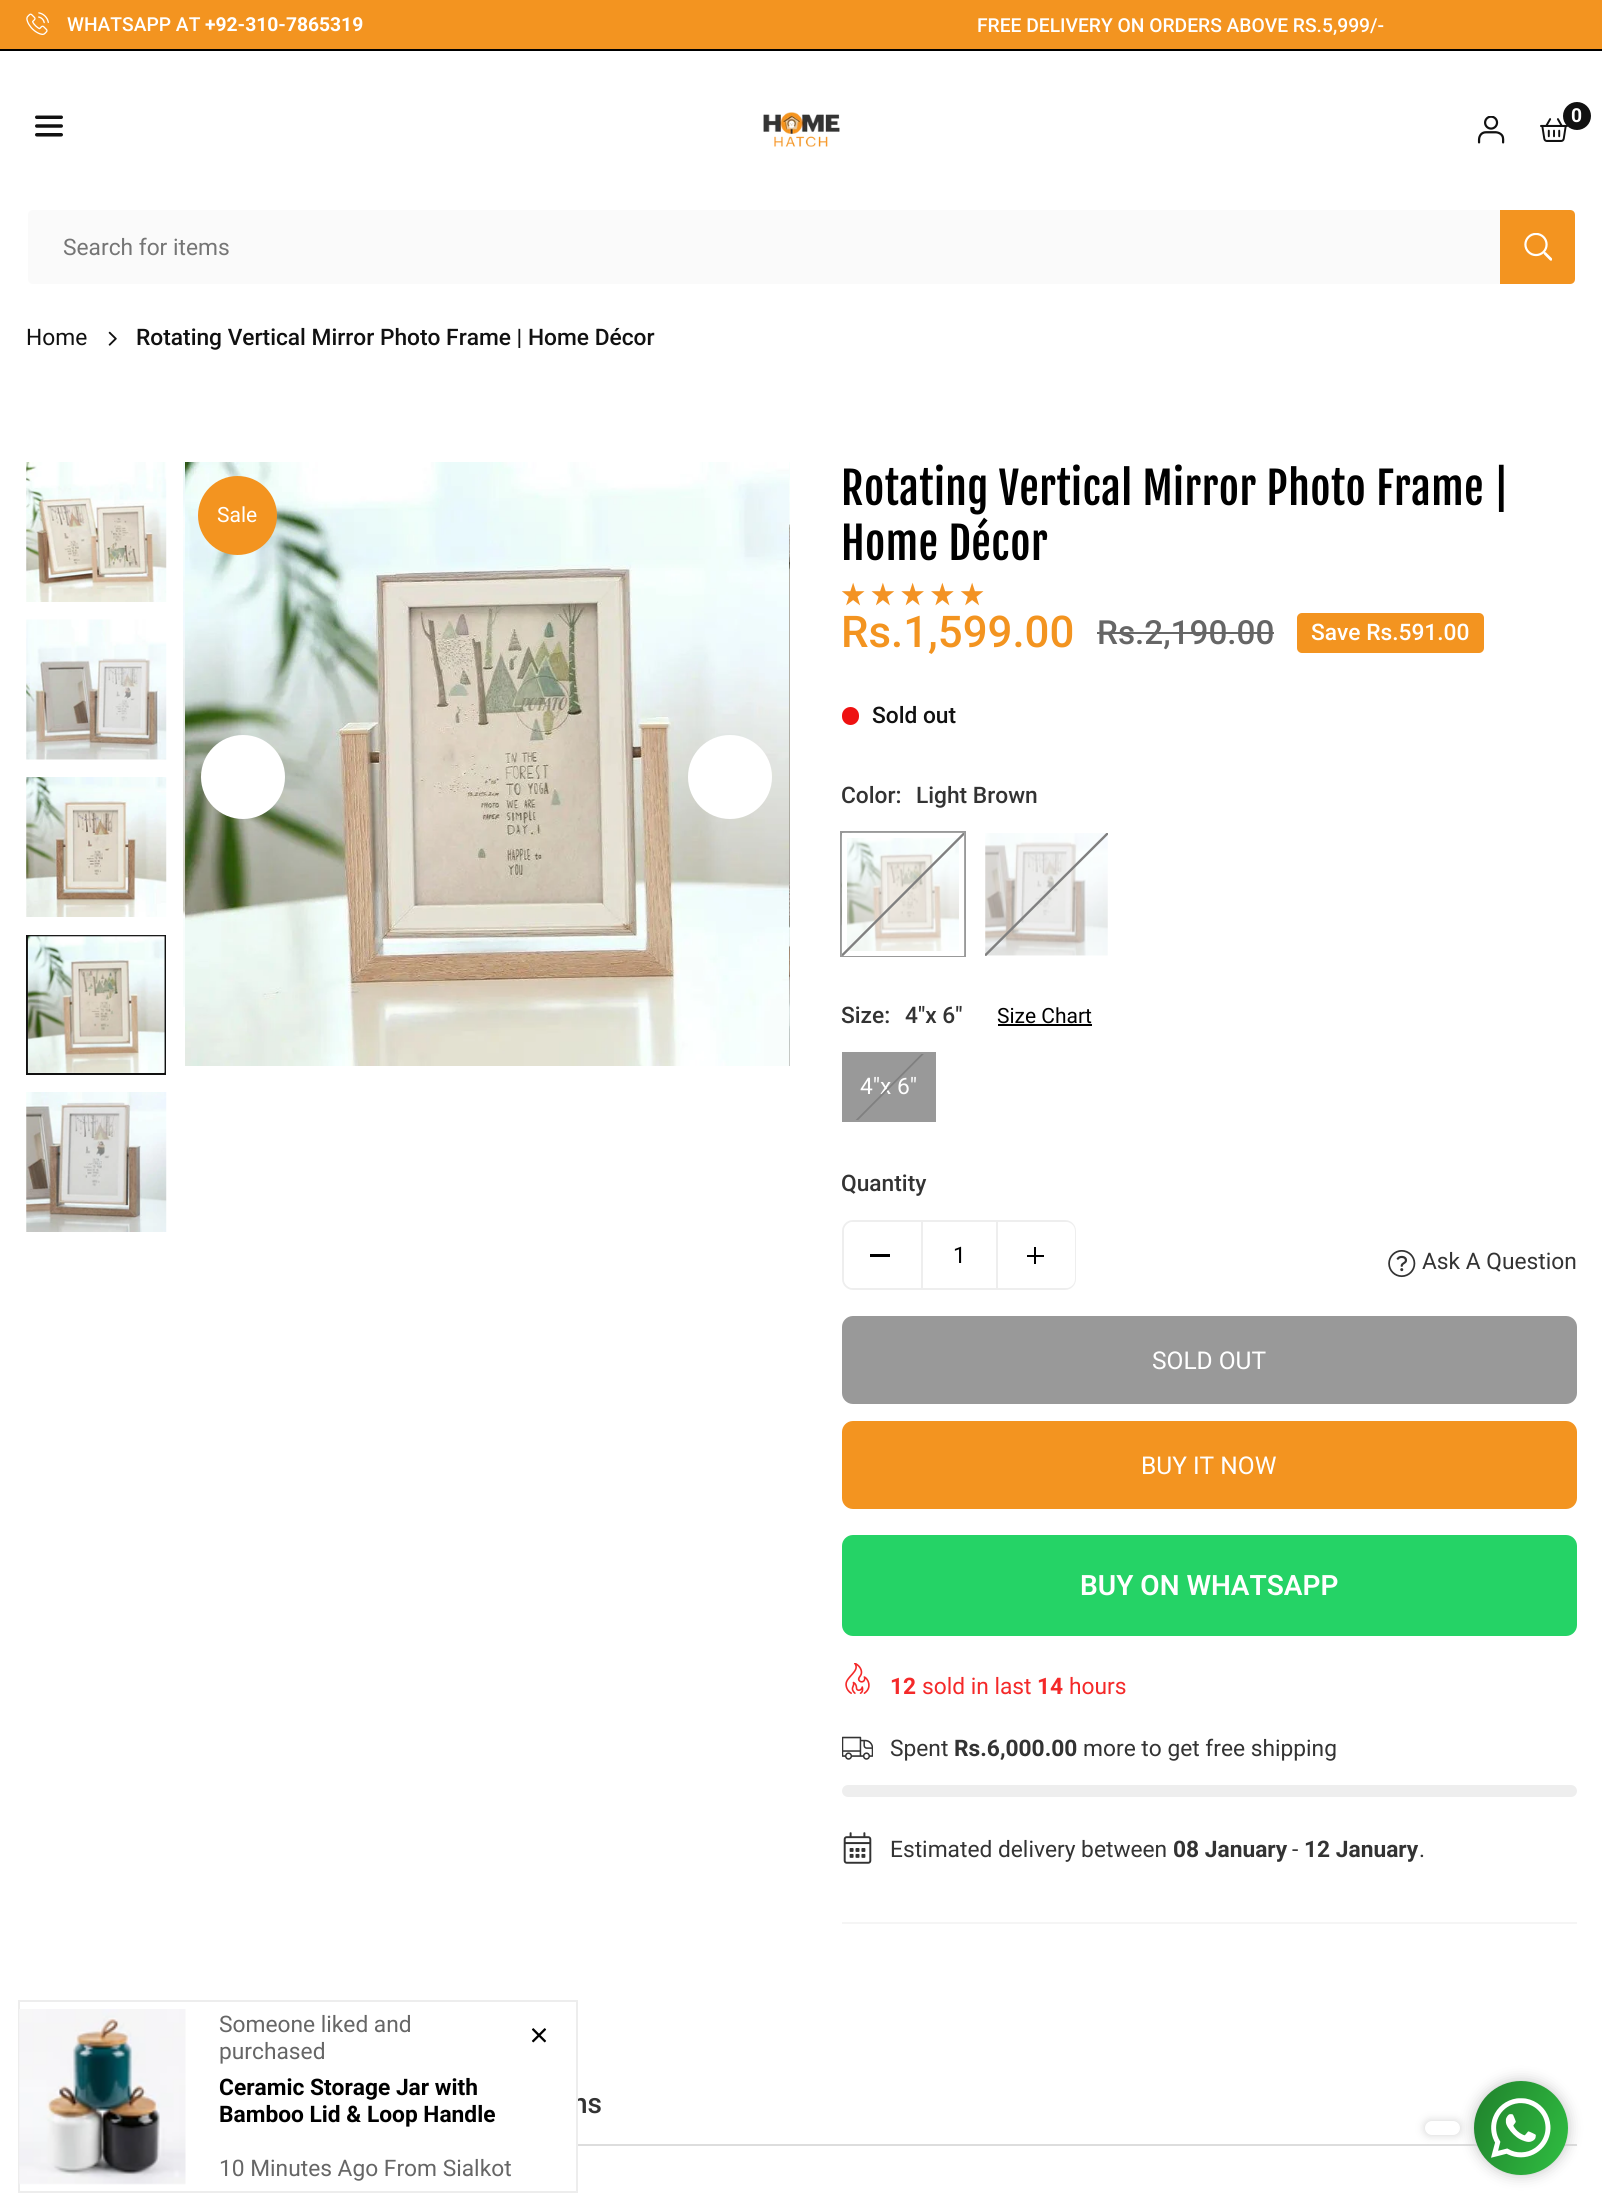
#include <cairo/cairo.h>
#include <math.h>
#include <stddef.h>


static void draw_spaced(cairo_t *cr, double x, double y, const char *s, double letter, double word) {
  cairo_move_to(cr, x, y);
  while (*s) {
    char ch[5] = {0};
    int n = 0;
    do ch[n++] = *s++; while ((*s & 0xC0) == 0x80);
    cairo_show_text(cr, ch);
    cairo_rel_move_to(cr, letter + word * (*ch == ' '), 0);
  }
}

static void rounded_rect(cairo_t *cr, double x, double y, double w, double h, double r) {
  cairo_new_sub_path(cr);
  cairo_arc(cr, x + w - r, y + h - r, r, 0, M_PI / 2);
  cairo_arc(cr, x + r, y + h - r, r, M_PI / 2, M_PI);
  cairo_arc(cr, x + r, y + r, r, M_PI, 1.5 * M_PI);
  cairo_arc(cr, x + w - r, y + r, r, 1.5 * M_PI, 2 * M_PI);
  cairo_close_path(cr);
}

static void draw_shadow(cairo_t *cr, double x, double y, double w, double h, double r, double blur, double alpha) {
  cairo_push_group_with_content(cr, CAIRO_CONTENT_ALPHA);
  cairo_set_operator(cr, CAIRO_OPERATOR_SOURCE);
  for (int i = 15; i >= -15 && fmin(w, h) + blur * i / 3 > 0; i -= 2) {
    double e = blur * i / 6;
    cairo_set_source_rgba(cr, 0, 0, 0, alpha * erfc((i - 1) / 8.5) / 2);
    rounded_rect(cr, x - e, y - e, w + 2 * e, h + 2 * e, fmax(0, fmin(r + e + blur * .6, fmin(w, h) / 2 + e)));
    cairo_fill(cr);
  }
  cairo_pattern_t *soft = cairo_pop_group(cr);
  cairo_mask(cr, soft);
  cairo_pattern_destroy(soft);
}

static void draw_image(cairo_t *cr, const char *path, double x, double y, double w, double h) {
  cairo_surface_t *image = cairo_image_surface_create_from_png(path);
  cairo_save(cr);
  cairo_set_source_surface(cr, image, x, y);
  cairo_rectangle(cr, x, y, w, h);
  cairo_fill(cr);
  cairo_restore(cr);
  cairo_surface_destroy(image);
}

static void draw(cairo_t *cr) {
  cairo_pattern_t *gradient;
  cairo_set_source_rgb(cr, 1, 1, 1);
  cairo_paint(cr);
  cairo_set_source_rgb(cr, 243 / 255.0, 148 / 255.0, 32 / 255.0);
  cairo_rectangle(cr, 0, 0, 1602, 49);
  cairo_fill(cr);
  cairo_set_source_rgb(cr, 0, 0, 0);
  cairo_rectangle(cr, 0, 49, 1602, 2);
  cairo_fill(cr);
  draw_image(cr, "images/1.png", 26, 12, 23, 23);
  draw_image(cr, "images/2.png", 35, 115, 28, 22);
  draw_image(cr, "images/3.png", 763, 112, 77, 35);
  draw_image(cr, "images/4.png", 1477, 116, 28, 28);
  draw_image(cr, "images/5.png", 1540, 118, 28, 24);
  cairo_set_source_rgb(cr, 17 / 255.0, 17 / 255.0, 17 / 255.0);
  cairo_arc(cr, 1577, 116, 14, 0, 2 * M_PI);
  cairo_fill(cr);
  cairo_set_source_rgb(cr, 250 / 255.0, 250 / 255.0, 250 / 255.0);
  cairo_new_path(cr);
  cairo_move_to(cr, 33, 210);
  cairo_line_to(cr, 1500, 210);
  cairo_line_to(cr, 1500, 284);
  cairo_line_to(cr, 33, 284);
  cairo_curve_to(cr, 30, 284, 28, 282, 28, 279);
  cairo_line_to(cr, 28, 215);
  cairo_curve_to(cr, 28, 212, 30, 210, 33, 210);
  cairo_close_path(cr);
  cairo_fill(cr);
  cairo_set_source_rgb(cr, 243 / 255.0, 148 / 255.0, 32 / 255.0);
  cairo_new_path(cr);
  cairo_move_to(cr, 1500, 210);
  cairo_line_to(cr, 1570, 210);
  cairo_curve_to(cr, 1573, 210, 1575, 212, 1575, 215);
  cairo_line_to(cr, 1575, 279);
  cairo_curve_to(cr, 1575, 282, 1573, 284, 1570, 284);
  cairo_line_to(cr, 1500, 284);
  cairo_close_path(cr);
  cairo_fill(cr);
  draw_image(cr, "images/6.png", 1524, 233, 28, 28);
  draw_image(cr, "images/7.png", 108, 331, 9, 15);
  draw_image(cr, "images/8.png", 26, 462, 141, 140);
  draw_image(cr, "images/9.png", 26, 619, 141, 141);
  draw_image(cr, "images/10.png", 26, 777, 141, 140);
  cairo_rectangle(cr, 27, 936, 138, 138);
  cairo_set_source_rgb(cr, 17 / 255.0, 17 / 255.0, 17 / 255.0);
  cairo_stroke(cr);
  draw_image(cr, "images/11.png", 27, 935, 138, 138);
  draw_image(cr, "images/12.png", 26, 1092, 141, 140);
  draw_image(cr, "images/13.png", 183, 462, 2, 545);
  draw_image(cr, "images/14.png", 185, 462, 604, 604);
  draw_image(cr, "images/15.png", 789, 462, 1, 604);
  cairo_set_source_rgb(cr, 1, 1, 1);
  cairo_arc(cr, 243, 777, 42, 0, 2 * M_PI);
  cairo_fill(cr);
  cairo_arc(cr, 730, 777, 42, 0, 2 * M_PI);
  cairo_fill(cr);
  cairo_set_source_rgb(cr, 243 / 255.0, 148 / 255.0, 32 / 255.0);
  cairo_arc(cr, 237.5, 515.5, 39.5, 0, 2 * M_PI);
  cairo_fill(cr);
  draw_image(cr, "images/16.png", 841, 582, 24, 24);
  draw_image(cr, "images/17.png", 871, 582, 24, 24);
  draw_image(cr, "images/18.png", 901, 582, 23, 24);
  draw_image(cr, "images/19.png", 931, 582, 23, 24);
  draw_image(cr, "images/16.png", 960, 582, 24, 24);
  cairo_set_source_rgb(cr, 102 / 255.0, 102 / 255.0, 102 / 255.0);
  cairo_rectangle(cr, 1097, 632, 177, 2);
  cairo_fill(cr);
  cairo_set_source_rgb(cr, 243 / 255.0, 148 / 255.0, 32 / 255.0);
  rounded_rect(cr, 1297, 613, 187, 40, 5);
  cairo_fill(cr);
  cairo_set_source_rgb(cr, 238 / 255.0, 17 / 255.0, 17 / 255.0);
  rounded_rect(cr, 842, 707, 17, 18, 8.5);
  cairo_fill(cr);
  cairo_rectangle(cr, 841, 832, 124, 124);
  cairo_set_source_rgb(cr, 153 / 255.0, 153 / 255.0, 153 / 255.0);
  cairo_stroke(cr);
  draw_image(cr, "images/20.png", 841, 832, 124, 124);
  cairo_rectangle(cr, 844.5, 835.5, 117, 118);
  cairo_set_source_rgb(cr, 1, 1, 1);
  cairo_set_line_width(cr, 5);
  cairo_stroke(cr);
  cairo_save(cr);
  cairo_rectangle(cr, 842, 833, 122, 123);
  cairo_clip(cr);
  cairo_new_path(cr);
  cairo_move_to(cr, 964.5, 833);
  cairo_line_to(cr, 842, 955.5);
  cairo_set_source_rgb(cr, 128 / 255.0, 128 / 255.0, 128 / 255.0);
  cairo_set_line_width(cr, 2.4);
  cairo_stroke(cr);
  cairo_restore(cr);
  draw_image(cr, "images/21.png", 985, 833, 123, 123);
  cairo_save(cr);
  cairo_rectangle(cr, 985, 833, 123, 123);
  cairo_clip(cr);
  cairo_new_path(cr);
  cairo_move_to(cr, 1108, 833);
  cairo_line_to(cr, 985, 955.5);
  cairo_set_source_rgb(cr, 128 / 255.0, 128 / 255.0, 128 / 255.0);
  cairo_set_line_width(cr, 2.4);
  cairo_stroke(cr);
  cairo_restore(cr);
  cairo_set_source_rgb(cr, 0, 0, 0);
  cairo_rectangle(cr, 998, 1024, 94, 2);
  cairo_fill(cr);
  cairo_set_source_rgb(cr, 153 / 255.0, 153 / 255.0, 153 / 255.0);
  cairo_rectangle(cr, 842, 1052, 94, 70);
  cairo_fill(cr);
  rounded_rect(cr, 843, 1221, 232, 68, 10);
  cairo_set_source_rgb(cr, 238 / 255.0, 238 / 255.0, 238 / 255.0);
  cairo_set_line_width(cr, 2);
  cairo_stroke(cr);
  cairo_set_source_rgb(cr, 1, 1, 1);
  cairo_new_path(cr);
  cairo_move_to(cr, 853, 1222);
  cairo_line_to(cr, 921, 1222);
  cairo_line_to(cr, 921, 1288);
  cairo_line_to(cr, 853, 1288);
  cairo_curve_to(cr, 848, 1288, 844, 1284, 844, 1279);
  cairo_line_to(cr, 844, 1231);
  cairo_curve_to(cr, 844, 1226, 848, 1222, 853, 1222);
  cairo_close_path(cr);
  cairo_fill(cr);
  cairo_set_source_rgb(cr, 0, 0, 0);
  cairo_rectangle(cr, 870, 1254, 20, 3);
  cairo_fill(cr);
  cairo_set_source_rgb(cr, 238 / 255.0, 238 / 255.0, 238 / 255.0);
  cairo_rectangle(cr, 996, 1222, 2, 66);
  cairo_fill(cr);
  cairo_rectangle(cr, 921, 1222, 2, 66);
  cairo_fill(cr);
  cairo_set_source_rgb(cr, 1, 1, 1);
  cairo_new_path(cr);
  cairo_move_to(cr, 998, 1222);
  cairo_line_to(cr, 1066, 1222);
  cairo_curve_to(cr, 1071, 1222, 1075, 1226, 1075, 1231);
  cairo_line_to(cr, 1075, 1279);
  cairo_curve_to(cr, 1075, 1284, 1071, 1288, 1066, 1288);
  cairo_line_to(cr, 998, 1288);
  cairo_close_path(cr);
  cairo_fill(cr);
  cairo_set_source_rgb(cr, 0, 0, 0);
  cairo_rectangle(cr, 1027, 1255, 17, 2);
  cairo_fill(cr);
  cairo_rectangle(cr, 1034, 1247, 2, 17);
  cairo_fill(cr);
  draw_image(cr, "images/22.png", 1388, 1250, 28, 28);
  cairo_set_source_rgb(cr, 153 / 255.0, 153 / 255.0, 153 / 255.0);
  rounded_rect(cr, 842, 1316, 735, 88, 11);
  cairo_fill(cr);
  cairo_set_source_rgb(cr, 243 / 255.0, 148 / 255.0, 32 / 255.0);
  rounded_rect(cr, 843, 1422, 733, 86, 10);
  cairo_fill_preserve(cr);
  cairo_stroke(cr);
  cairo_set_source_rgb(cr, 37 / 255.0, 211 / 255.0, 102 / 255.0);
  rounded_rect(cr, 842, 1535, 735, 101, 11);
  cairo_fill(cr);
  draw_image(cr, "images/23.png", 845, 1663, 25, 31);
  draw_image(cr, "images/24.png", 842, 1736, 31, 24);
  cairo_set_source_rgb(cr, 238 / 255.0, 238 / 255.0, 238 / 255.0);
  rounded_rect(cr, 842, 1785, 735, 12, 6);
  cairo_fill(cr);
  draw_image(cr, "images/25.png", 843, 1832, 29, 32);
  cairo_set_source_rgb(cr, 245 / 255.0, 245 / 255.0, 245 / 255.0);
  cairo_rectangle(cr, 842, 1922, 735, 2);
  cairo_fill(cr);
  cairo_set_source_rgb(cr, 221 / 255.0, 221 / 255.0, 221 / 255.0);
  cairo_rectangle(cr, 578, 2144, 999, 2);
  cairo_fill(cr);
  cairo_set_source_rgb(cr, 211 / 255.0, 211 / 255.0, 211 / 255.0);
  draw_shadow(cr, 1425, 2121, 35, 14, 7, 4.5, 1);
  cairo_set_source_rgb(cr, 1, 1, 1);
  rounded_rect(cr, 1425, 2121, 35, 14, 7);
  cairo_fill(cr);
  cairo_set_source_rgb(cr, 194 / 255.0, 194 / 255.0, 194 / 255.0);
  draw_shadow(cr, 1474, 2081, 94, 94, 47, 7, 1);
  gradient = cairo_pattern_create_linear(1464, 2104, 1578, 2152);
  cairo_pattern_add_color_stop_rgba(gradient, 0, 32 / 255.0, 128 / 255.0, 44 / 255.0, 1);
  cairo_pattern_add_color_stop_rgba(gradient, 0, 32 / 255.0, 128 / 255.0, 44 / 255.0, 1);
  cairo_pattern_add_color_stop_rgba(gradient, 1, 48 / 255.0, 191 / 255.0, 66 / 255.0, 1);
  cairo_set_source(cr, gradient);
  cairo_pattern_destroy(gradient);
  cairo_arc(cr, 1521, 2128, 47, 0, 2 * M_PI);
  cairo_fill(cr);
  draw_image(cr, "images/28.png", 1491, 2098, 60, 60);
  cairo_select_font_face(cr, "Roboto Medium", CAIRO_FONT_SLANT_NORMAL, CAIRO_FONT_WEIGHT_NORMAL);
  cairo_set_font_size(cr, 19.25);
  cairo_set_source_rgb(cr, 1, 1, 1);
  cairo_move_to(cr, 67, 31);
  cairo_show_text(cr, "WHATSAPP AT");
  cairo_select_font_face(cr, "Roboto", CAIRO_FONT_SLANT_NORMAL, CAIRO_FONT_WEIGHT_BOLD);
  cairo_move_to(cr, 205, 31);
  cairo_show_text(cr, "+92-310-7865319");
  cairo_select_font_face(cr, "Roboto Medium", CAIRO_FONT_SLANT_NORMAL, CAIRO_FONT_WEIGHT_NORMAL);
  cairo_move_to(cr, 977, 32);
  cairo_show_text(cr, "FREE DELIVERY ON ORDERS ABOVE RS.5,999/-");
  cairo_select_font_face(cr, "Roboto", CAIRO_FONT_SLANT_NORMAL, CAIRO_FONT_WEIGHT_BOLD);
  cairo_move_to(cr, 1571, 122);
  cairo_show_text(cr, "0");
  cairo_select_font_face(cr, "Roboto", CAIRO_FONT_SLANT_NORMAL, CAIRO_FONT_WEIGHT_NORMAL);
  cairo_set_font_size(cr, 22.75);
  cairo_set_source_rgb(cr, 117 / 255.0, 117 / 255.0, 117 / 255.0);
  cairo_move_to(cr, 63, 255);
  cairo_show_text(cr, "Search for items");
  cairo_set_source_rgb(cr, 17 / 255.0, 17 / 255.0, 17 / 255.0);
  cairo_move_to(cr, 26, 345);
  cairo_show_text(cr, "Home");
  cairo_select_font_face(cr, "Roboto Medium", CAIRO_FONT_SLANT_NORMAL, CAIRO_FONT_WEIGHT_NORMAL);
  cairo_move_to(cr, 136, 345);
  cairo_show_text(cr, "Rotating Vertical Mirror Photo Frame | Home Décor");
  cairo_select_font_face(cr, "Roboto", CAIRO_FONT_SLANT_NORMAL, CAIRO_FONT_WEIGHT_NORMAL);
  cairo_set_font_size(cr, 21);
  cairo_set_source_rgb(cr, 1, 1, 1);
  cairo_move_to(cr, 217, 522);
  cairo_show_text(cr, "Sale");
  cairo_select_font_face(cr, "Fjalla One", CAIRO_FONT_SLANT_NORMAL, CAIRO_FONT_WEIGHT_NORMAL);
  cairo_set_font_size(cr, 43.75);
  cairo_set_source_rgb(cr, 0, 0, 0);
  draw_spaced(cr, 841, 505, "Rotating Vertical Mirror Photo Frame |", 0.45, 0);
  draw_spaced(cr, 841, 560, "Home Décor", 0.45, 0);
  cairo_select_font_face(cr, "Roboto Medium", CAIRO_FONT_SLANT_NORMAL, CAIRO_FONT_WEIGHT_NORMAL);
  cairo_set_source_rgb(cr, 243 / 255.0, 148 / 255.0, 32 / 255.0);
  cairo_move_to(cr, 841, 647);
  cairo_show_text(cr, "Rs.1,599.00");
  cairo_set_font_size(cr, 33.25);
  cairo_set_source_rgb(cr, 102 / 255.0, 102 / 255.0, 102 / 255.0);
  cairo_move_to(cr, 1097, 644);
  cairo_show_text(cr, "Rs.2,190.00");
  cairo_set_font_size(cr, 22.75);
  cairo_set_source_rgb(cr, 1, 1, 1);
  cairo_move_to(cr, 1311, 640);
  cairo_show_text(cr, "Save Rs.591.00");
  cairo_set_source_rgb(cr, 17 / 255.0, 17 / 255.0, 17 / 255.0);
  cairo_move_to(cr, 872, 723);
  cairo_show_text(cr, "Sold out");
  cairo_set_source_rgb(cr, 51 / 255.0, 51 / 255.0, 51 / 255.0);
  cairo_move_to(cr, 841, 803);
  cairo_show_text(cr, "Color:");
  cairo_move_to(cr, 916, 803);
  cairo_show_text(cr, "Light Brown");
  cairo_move_to(cr, 841, 1023);
  cairo_show_text(cr, "Size:");
  cairo_move_to(cr, 905, 1023);
  cairo_show_text(cr, "4\"x 6\"");
  cairo_select_font_face(cr, "Roboto", CAIRO_FONT_SLANT_NORMAL, CAIRO_FONT_WEIGHT_NORMAL);
  cairo_set_font_size(cr, 21);
  cairo_set_source_rgb(cr, 0, 0, 0);
  cairo_move_to(cr, 997, 1023);
  cairo_show_text(cr, "Size Chart");
  cairo_set_font_size(cr, 22.75);
  cairo_set_source_rgb(cr, 1, 1, 1);
  cairo_move_to(cr, 860, 1094);
  cairo_show_text(cr, "4\"x 6\"");
  cairo_save(cr);
  cairo_rectangle(cr, 844, 1054, 91, 66);
  cairo_clip(cr);
  cairo_new_path(cr);
  cairo_move_to(cr, 935.5, 1041);
  cairo_line_to(cr, 843.5, 1133.5);
  cairo_set_source_rgb(cr, 128 / 255.0, 128 / 255.0, 128 / 255.0);
  cairo_set_line_width(cr, 1.8);
  cairo_stroke(cr);
  cairo_restore(cr);
  cairo_select_font_face(cr, "Roboto Medium", CAIRO_FONT_SLANT_NORMAL, CAIRO_FONT_WEIGHT_NORMAL);
  cairo_set_source_rgb(cr, 51 / 255.0, 51 / 255.0, 51 / 255.0);
  cairo_move_to(cr, 841, 1191);
  cairo_show_text(cr, "Quantity");
  cairo_select_font_face(cr, "Roboto", CAIRO_FONT_SLANT_NORMAL, CAIRO_FONT_WEIGHT_NORMAL);
  cairo_set_source_rgb(cr, 0, 0, 0);
  cairo_move_to(cr, 953, 1263);
  cairo_show_text(cr, "1");
  cairo_set_source_rgb(cr, 51 / 255.0, 51 / 255.0, 51 / 255.0);
  cairo_move_to(cr, 1422, 1269);
  cairo_show_text(cr, "Ask A Question");
  cairo_set_font_size(cr, 24.5);
  cairo_set_source_rgb(cr, 1, 1, 1);
  cairo_move_to(cr, 1152, 1369);
  cairo_show_text(cr, "SOLD OUT");
  cairo_move_to(cr, 1141, 1474);
  cairo_show_text(cr, "BUY IT NOW");
  cairo_select_font_face(cr, "Roboto SemiBold", CAIRO_FONT_SLANT_NORMAL, CAIRO_FONT_WEIGHT_NORMAL);
  cairo_set_font_size(cr, 28);
  cairo_move_to(cr, 1080, 1595);
  cairo_show_text(cr, "BUY ON WHATSAPP");
  cairo_select_font_face(cr, "Roboto", CAIRO_FONT_SLANT_NORMAL, CAIRO_FONT_WEIGHT_BOLD);
  cairo_set_font_size(cr, 22.75);
  cairo_set_source_rgb(cr, 244 / 255.0, 41 / 255.0, 41 / 255.0);
  cairo_move_to(cr, 890, 1694);
  cairo_show_text(cr, "12");
  cairo_select_font_face(cr, "Roboto", CAIRO_FONT_SLANT_NORMAL, CAIRO_FONT_WEIGHT_NORMAL);
  cairo_move_to(cr, 922, 1694);
  cairo_show_text(cr, "sold in last");
  cairo_select_font_face(cr, "Roboto", CAIRO_FONT_SLANT_NORMAL, CAIRO_FONT_WEIGHT_BOLD);
  cairo_move_to(cr, 1037, 1694);
  cairo_show_text(cr, "14");
  cairo_select_font_face(cr, "Roboto", CAIRO_FONT_SLANT_NORMAL, CAIRO_FONT_WEIGHT_NORMAL);
  cairo_move_to(cr, 1069, 1694);
  cairo_show_text(cr, "hours");
  cairo_set_source_rgb(cr, 51 / 255.0, 51 / 255.0, 51 / 255.0);
  cairo_move_to(cr, 890, 1756);
  cairo_show_text(cr, "Spent");
  cairo_select_font_face(cr, "Roboto", CAIRO_FONT_SLANT_NORMAL, CAIRO_FONT_WEIGHT_BOLD);
  cairo_move_to(cr, 954, 1756);
  cairo_show_text(cr, "Rs.6,000.00");
  cairo_select_font_face(cr, "Roboto", CAIRO_FONT_SLANT_NORMAL, CAIRO_FONT_WEIGHT_NORMAL);
  cairo_move_to(cr, 1083, 1756);
  cairo_show_text(cr, "more to get free shipping");
  cairo_move_to(cr, 890, 1857);
  cairo_show_text(cr, "Estimated delivery between");
  cairo_select_font_face(cr, "Roboto", CAIRO_FONT_SLANT_NORMAL, CAIRO_FONT_WEIGHT_BOLD);
  cairo_move_to(cr, 1173, 1857);
  cairo_show_text(cr, "08 January");
  cairo_select_font_face(cr, "Roboto", CAIRO_FONT_SLANT_NORMAL, CAIRO_FONT_WEIGHT_NORMAL);
  cairo_move_to(cr, 1292, 1857);
  cairo_show_text(cr, "-");
  cairo_select_font_face(cr, "Roboto", CAIRO_FONT_SLANT_NORMAL, CAIRO_FONT_WEIGHT_BOLD);
  cairo_move_to(cr, 1304, 1857);
  cairo_show_text(cr, "12 January");
  cairo_select_font_face(cr, "Roboto", CAIRO_FONT_SLANT_NORMAL, CAIRO_FONT_WEIGHT_NORMAL);
  cairo_move_to(cr, 1419, 1857);
  cairo_show_text(cr, ".");
  cairo_select_font_face(cr, "Roboto Medium", CAIRO_FONT_SLANT_NORMAL, CAIRO_FONT_WEIGHT_NORMAL);
  cairo_set_font_size(cr, 28);
  cairo_move_to(cr, 572, 2113);
  cairo_show_text(cr, "ns");
  cairo_set_source_rgb(cr, 1, 1, 1);
  cairo_rectangle(cr, 573, 2098, 3, 15);
  cairo_fill(cr);
  cairo_rectangle(cr, 19, 2001, 558, 191);
  cairo_set_source_rgb(cr, 237 / 255.0, 237 / 255.0, 237 / 255.0);
  cairo_stroke(cr);
  draw_image(cr, "images/26.png", 19, 2009, 167, 176);
  cairo_select_font_face(cr, "Roboto", CAIRO_FONT_SLANT_NORMAL, CAIRO_FONT_WEIGHT_NORMAL);
  cairo_set_font_size(cr, 22.75);
  cairo_set_source_rgb(cr, 102 / 255.0, 102 / 255.0, 102 / 255.0);
  cairo_move_to(cr, 219, 2032);
  cairo_show_text(cr, "Someone liked and");
  cairo_move_to(cr, 219, 2059);
  cairo_show_text(cr, "purchased");
  cairo_select_font_face(cr, "Roboto", CAIRO_FONT_SLANT_NORMAL, CAIRO_FONT_WEIGHT_BOLD);
  cairo_set_source_rgb(cr, 0, 0, 0);
  cairo_move_to(cr, 219, 2095);
  cairo_show_text(cr, "Ceramic Storage Jar with");
  cairo_move_to(cr, 219, 2122);
  cairo_show_text(cr, "Bamboo Lid & Loop Handle");
  cairo_select_font_face(cr, "Roboto", CAIRO_FONT_SLANT_NORMAL, CAIRO_FONT_WEIGHT_NORMAL);
  cairo_set_source_rgb(cr, 102 / 255.0, 102 / 255.0, 102 / 255.0);
  cairo_move_to(cr, 219, 2176);
  cairo_show_text(cr, "10 Minutes Ago From Sialkot");
  draw_image(cr, "images/27.png", 531, 2028, 16, 15);
}

int main(void) {
  cairo_surface_t *surface = cairo_image_surface_create(CAIRO_FORMAT_RGB24, 1602, 2210);
  cairo_t *cr = cairo_create(surface);
  cairo_font_options_t *options = cairo_font_options_create();
  cairo_font_options_set_hint_metrics(options, CAIRO_HINT_METRICS_OFF);
  cairo_font_options_set_hint_style(options, CAIRO_HINT_STYLE_NONE);
  cairo_set_font_options(cr, options);
  cairo_set_miter_limit(cr, 4);
  draw(cr);
  cairo_surface_write_to_png(surface, "out.png");
  cairo_font_options_destroy(options);
  cairo_destroy(cr);
  cairo_surface_destroy(surface);
  return 0;
}
